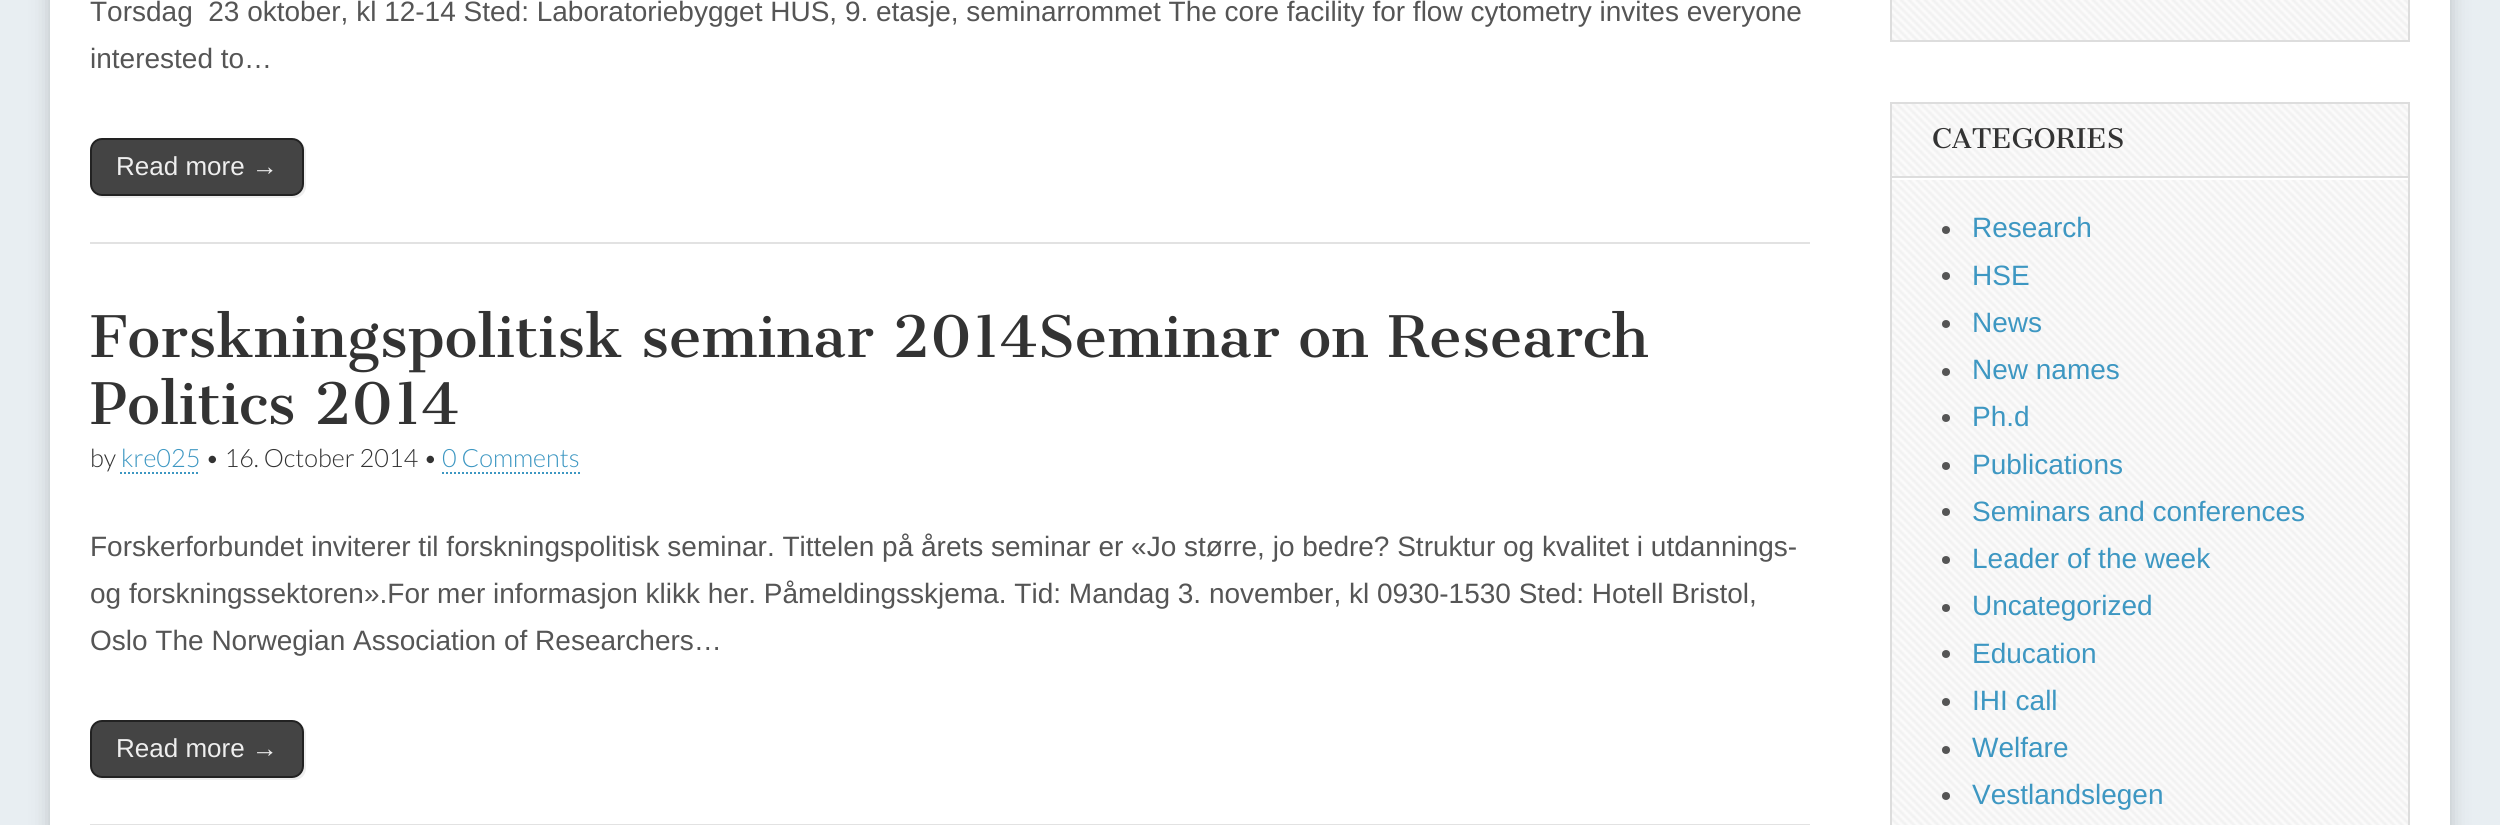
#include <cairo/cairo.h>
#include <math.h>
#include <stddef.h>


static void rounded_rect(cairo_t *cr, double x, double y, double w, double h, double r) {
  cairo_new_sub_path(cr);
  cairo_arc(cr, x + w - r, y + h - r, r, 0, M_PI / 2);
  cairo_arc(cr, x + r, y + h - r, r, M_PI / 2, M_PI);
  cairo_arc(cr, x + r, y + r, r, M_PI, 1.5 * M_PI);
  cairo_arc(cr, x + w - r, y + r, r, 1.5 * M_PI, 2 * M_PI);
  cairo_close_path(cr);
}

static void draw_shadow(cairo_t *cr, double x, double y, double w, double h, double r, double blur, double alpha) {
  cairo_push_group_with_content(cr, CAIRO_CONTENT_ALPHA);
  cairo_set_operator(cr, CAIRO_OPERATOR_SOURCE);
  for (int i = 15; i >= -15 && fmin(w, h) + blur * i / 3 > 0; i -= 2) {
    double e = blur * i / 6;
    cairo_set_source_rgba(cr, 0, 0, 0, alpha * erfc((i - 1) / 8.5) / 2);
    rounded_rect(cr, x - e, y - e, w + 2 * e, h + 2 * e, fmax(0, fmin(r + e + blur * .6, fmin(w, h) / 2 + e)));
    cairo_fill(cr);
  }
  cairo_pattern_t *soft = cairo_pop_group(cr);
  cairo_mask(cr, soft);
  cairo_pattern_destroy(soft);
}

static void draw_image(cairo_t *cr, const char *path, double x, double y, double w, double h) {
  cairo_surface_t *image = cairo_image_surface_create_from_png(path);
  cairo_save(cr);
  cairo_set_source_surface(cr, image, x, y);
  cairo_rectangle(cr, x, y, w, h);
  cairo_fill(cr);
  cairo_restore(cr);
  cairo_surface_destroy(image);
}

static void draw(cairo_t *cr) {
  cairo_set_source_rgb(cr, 232 / 255.0, 238 / 255.0, 242 / 255.0);
  cairo_paint(cr);
  cairo_set_source_rgb(cr, 0, 0, 0);
  draw_shadow(cr, 50, -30, 2400, 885, 0, 10, 0.2);
  cairo_set_source_rgb(cr, 1, 1, 1);
  cairo_rectangle(cr, 50, 0, 2400, 825);
  cairo_fill(cr);
  cairo_set_source_rgb(cr, 226 / 255.0, 226 / 255.0, 226 / 255.0);
  cairo_rectangle(cr, 90, 242, 1720, 2);
  cairo_fill(cr);
  cairo_set_source_rgb(cr, 238 / 255.0, 238 / 255.0, 238 / 255.0);
  cairo_new_path(cr);
  cairo_move_to(cr, 95, 193);
  cairo_curve_to(cr, 97, 196, 100, 198, 104, 198);
  cairo_line_to(cr, 294, 198);
  cairo_curve_to(cr, 301, 198, 306, 193, 306, 186);
  cairo_line_to(cr, 306, 152);
  cairo_curve_to(cr, 306, 148, 304, 145, 301, 143);
  cairo_curve_to(cr, 303, 145, 304, 147, 304, 150);
  cairo_line_to(cr, 304, 184);
  cairo_curve_to(cr, 304, 191, 299, 196, 292, 196);
  cairo_line_to(cr, 102, 196);
  cairo_curve_to(cr, 99, 196, 97, 195, 95, 193);
  cairo_close_path(cr);
  cairo_fill(cr);
  cairo_set_source_rgb(cr, 68 / 255.0, 68 / 255.0, 68 / 255.0);
  rounded_rect(cr, 91, 139, 212, 56, 11);
  cairo_fill_preserve(cr);
  cairo_set_source_rgb(cr, 34 / 255.0, 34 / 255.0, 34 / 255.0);
  cairo_stroke(cr);
  cairo_new_path(cr);
  cairo_move_to(cr, 120, 473);
  cairo_line_to(cr, 200, 473);
  cairo_set_source_rgb(cr, 61 / 255.0, 151 / 255.0, 194 / 255.0);
  cairo_set_dash(cr, (double[]){2, 2}, 2, 0);
  cairo_stroke(cr);
  cairo_new_path(cr);
  cairo_move_to(cr, 442, 473);
  cairo_line_to(cr, 580, 473);
  cairo_stroke(cr);
  cairo_set_source_rgb(cr, 226 / 255.0, 226 / 255.0, 226 / 255.0);
  cairo_rectangle(cr, 90, 824, 1720, 1);
  cairo_fill(cr);
  cairo_set_source_rgb(cr, 238 / 255.0, 238 / 255.0, 238 / 255.0);
  cairo_new_path(cr);
  cairo_move_to(cr, 95, 775);
  cairo_curve_to(cr, 97, 778, 100, 780, 104, 780);
  cairo_line_to(cr, 294, 780);
  cairo_curve_to(cr, 301, 780, 306, 775, 306, 768);
  cairo_line_to(cr, 306, 734);
  cairo_curve_to(cr, 306, 730, 304, 727, 301, 725);
  cairo_curve_to(cr, 303, 727, 304, 729, 304, 732);
  cairo_line_to(cr, 304, 766);
  cairo_curve_to(cr, 304, 773, 299, 778, 292, 778);
  cairo_line_to(cr, 102, 778);
  cairo_curve_to(cr, 99, 778, 97, 777, 95, 775);
  cairo_close_path(cr);
  cairo_fill(cr);
  cairo_set_source_rgb(cr, 68 / 255.0, 68 / 255.0, 68 / 255.0);
  rounded_rect(cr, 91, 721, 212, 56, 11);
  cairo_fill_preserve(cr);
  cairo_set_source_rgb(cr, 34 / 255.0, 34 / 255.0, 34 / 255.0);
  cairo_set_dash(cr, NULL, 0, 0);
  cairo_stroke(cr);
  draw_image(cr, "images/1.png", 1892, 0, 516, 40);
  cairo_rectangle(cr, 1891, -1, 518, 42);
  cairo_set_source_rgb(cr, 221 / 255.0, 221 / 255.0, 221 / 255.0);
  cairo_stroke(cr);
  draw_image(cr, "images/2.png", 1892, 104, 516, 721);
  cairo_rectangle(cr, 1891, 103, 518, 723);
  cairo_stroke(cr);
  cairo_set_source_rgb(cr, 1, 1, 1);
  cairo_rectangle(cr, 1892, 178, 516, 2);
  cairo_fill(cr);
  cairo_set_source_rgb(cr, 221 / 255.0, 221 / 255.0, 221 / 255.0);
  cairo_rectangle(cr, 1892, 176, 516, 2);
  cairo_fill(cr);
  cairo_set_source_rgb(cr, 85 / 255.0, 85 / 255.0, 85 / 255.0);
  cairo_arc(cr, 1946, 230, 4, 0, 2 * M_PI);
  cairo_fill(cr);
  cairo_arc(cr, 1946, 276, 4, 0, 2 * M_PI);
  cairo_fill(cr);
  cairo_arc(cr, 1946, 324, 4, 0, 2 * M_PI);
  cairo_fill(cr);
  cairo_arc(cr, 1946, 372, 4, 0, 2 * M_PI);
  cairo_fill(cr);
  cairo_arc(cr, 1946, 418, 4, 0, 2 * M_PI);
  cairo_fill(cr);
  cairo_arc(cr, 1946, 466, 4, 0, 2 * M_PI);
  cairo_fill(cr);
  cairo_arc(cr, 1946, 512, 4, 0, 2 * M_PI);
  cairo_fill(cr);
  cairo_arc(cr, 1946, 560, 4, 0, 2 * M_PI);
  cairo_fill(cr);
  cairo_arc(cr, 1946, 608, 4, 0, 2 * M_PI);
  cairo_fill(cr);
  cairo_arc(cr, 1946, 654, 4, 0, 2 * M_PI);
  cairo_fill(cr);
  cairo_arc(cr, 1946, 702, 4, 0, 2 * M_PI);
  cairo_fill(cr);
  cairo_arc(cr, 1946, 750, 4, 0, 2 * M_PI);
  cairo_fill(cr);
  cairo_arc(cr, 1946, 796, 4, 0, 2 * M_PI);
  cairo_fill(cr);
  cairo_select_font_face(cr, "Liberation Sans", CAIRO_FONT_SLANT_NORMAL, CAIRO_FONT_WEIGHT_NORMAL);
  cairo_set_font_size(cr, 28);
  cairo_move_to(cr, 90, 21);
  cairo_show_text(cr, "Torsdag  23 oktober, kl 12-14 Sted: Laboratoriebygget HUS, 9. etasje, seminarrommet The core facility for flow cytometry invites everyone");
  cairo_move_to(cr, 90, 68);
  cairo_show_text(cr, "interested to…");
  cairo_set_font_size(cr, 26);
  cairo_set_source_rgb(cr, 238 / 255.0, 238 / 255.0, 238 / 255.0);
  cairo_move_to(cr, 116, 175);
  cairo_show_text(cr, "Read more →");
  cairo_select_font_face(cr, "Cantata One", CAIRO_FONT_SLANT_NORMAL, CAIRO_FONT_WEIGHT_NORMAL);
  cairo_set_font_size(cr, 56);
  cairo_set_source_rgb(cr, 51 / 255.0, 51 / 255.0, 51 / 255.0);
  cairo_move_to(cr, 90, 357);
  cairo_show_text(cr, "Forskningspolitisk seminar 2014Seminar on Research");
  cairo_move_to(cr, 90, 424);
  cairo_show_text(cr, "Politics 2014");
  cairo_select_font_face(cr, "Lato Light", CAIRO_FONT_SLANT_NORMAL, CAIRO_FONT_WEIGHT_NORMAL);
  cairo_set_font_size(cr, 25.25);
  cairo_move_to(cr, 90, 467);
  cairo_show_text(cr, "by");
  cairo_set_source_rgb(cr, 61 / 255.0, 151 / 255.0, 194 / 255.0);
  cairo_move_to(cr, 121, 467);
  cairo_show_text(cr, "kre025");
  cairo_set_source_rgb(cr, 51 / 255.0, 51 / 255.0, 51 / 255.0);
  cairo_move_to(cr, 205, 467);
  cairo_show_text(cr, "• 16. October 2014 •");
  cairo_set_source_rgb(cr, 61 / 255.0, 151 / 255.0, 194 / 255.0);
  cairo_move_to(cr, 442, 467);
  cairo_show_text(cr, "0 Comments");
  cairo_select_font_face(cr, "Liberation Sans", CAIRO_FONT_SLANT_NORMAL, CAIRO_FONT_WEIGHT_NORMAL);
  cairo_set_font_size(cr, 28);
  cairo_set_source_rgb(cr, 85 / 255.0, 85 / 255.0, 85 / 255.0);
  cairo_move_to(cr, 90, 556);
  cairo_show_text(cr, "Forskerforbundet inviterer til forskningspolitisk seminar. Tittelen på årets seminar er «Jo større, jo bedre? Struktur og kvalitet i utdannings-");
  cairo_move_to(cr, 90, 603);
  cairo_show_text(cr, "og forskningssektoren».For mer informasjon klikk her. Påmeldingsskjema. Tid: Mandag 3. november, kl 0930-1530 Sted: Hotell Bristol,");
  cairo_move_to(cr, 90, 650);
  cairo_show_text(cr, "Oslo The Norwegian Association of Researchers…");
  cairo_set_font_size(cr, 26);
  cairo_set_source_rgb(cr, 238 / 255.0, 238 / 255.0, 238 / 255.0);
  cairo_move_to(cr, 116, 757);
  cairo_show_text(cr, "Read more →");
  cairo_select_font_face(cr, "Cantata One", CAIRO_FONT_SLANT_NORMAL, CAIRO_FONT_WEIGHT_NORMAL);
  cairo_set_font_size(cr, 26.5);
  cairo_set_source_rgb(cr, 51 / 255.0, 51 / 255.0, 51 / 255.0);
  cairo_move_to(cr, 1932, 148);
  cairo_show_text(cr, "CATEGORIES");
  cairo_select_font_face(cr, "Liberation Sans", CAIRO_FONT_SLANT_NORMAL, CAIRO_FONT_WEIGHT_NORMAL);
  cairo_set_font_size(cr, 28);
  cairo_set_source_rgb(cr, 61 / 255.0, 151 / 255.0, 194 / 255.0);
  cairo_move_to(cr, 1972, 237);
  cairo_show_text(cr, "Research");
  cairo_move_to(cr, 1972, 285);
  cairo_show_text(cr, "HSE");
  cairo_move_to(cr, 1972, 332);
  cairo_show_text(cr, "News");
  cairo_move_to(cr, 1972, 379);
  cairo_show_text(cr, "New names");
  cairo_move_to(cr, 1972, 426);
  cairo_show_text(cr, "Ph.d");
  cairo_move_to(cr, 1972, 474);
  cairo_show_text(cr, "Publications");
  cairo_move_to(cr, 1972, 521);
  cairo_show_text(cr, "Seminars and conferences");
  cairo_move_to(cr, 1972, 568);
  cairo_show_text(cr, "Leader of the week");
  cairo_move_to(cr, 1972, 615);
  cairo_show_text(cr, "Uncategorized");
  cairo_move_to(cr, 1972, 663);
  cairo_show_text(cr, "Education");
  cairo_move_to(cr, 1972, 710);
  cairo_show_text(cr, "IHI call");
  cairo_move_to(cr, 1972, 757);
  cairo_show_text(cr, "Welfare");
  cairo_move_to(cr, 1972, 804);
  cairo_show_text(cr, "Vestlandslegen");
}

int main(void) {
  cairo_surface_t *surface = cairo_image_surface_create(CAIRO_FORMAT_RGB24, 2500, 825);
  cairo_t *cr = cairo_create(surface);
  cairo_font_options_t *options = cairo_font_options_create();
  cairo_font_options_set_hint_metrics(options, CAIRO_HINT_METRICS_OFF);
  cairo_font_options_set_hint_style(options, CAIRO_HINT_STYLE_NONE);
  cairo_set_font_options(cr, options);
  cairo_set_miter_limit(cr, 4);
  draw(cr);
  cairo_surface_write_to_png(surface, "out.png");
  cairo_font_options_destroy(options);
  cairo_destroy(cr);
  cairo_surface_destroy(surface);
  return 0;
}
